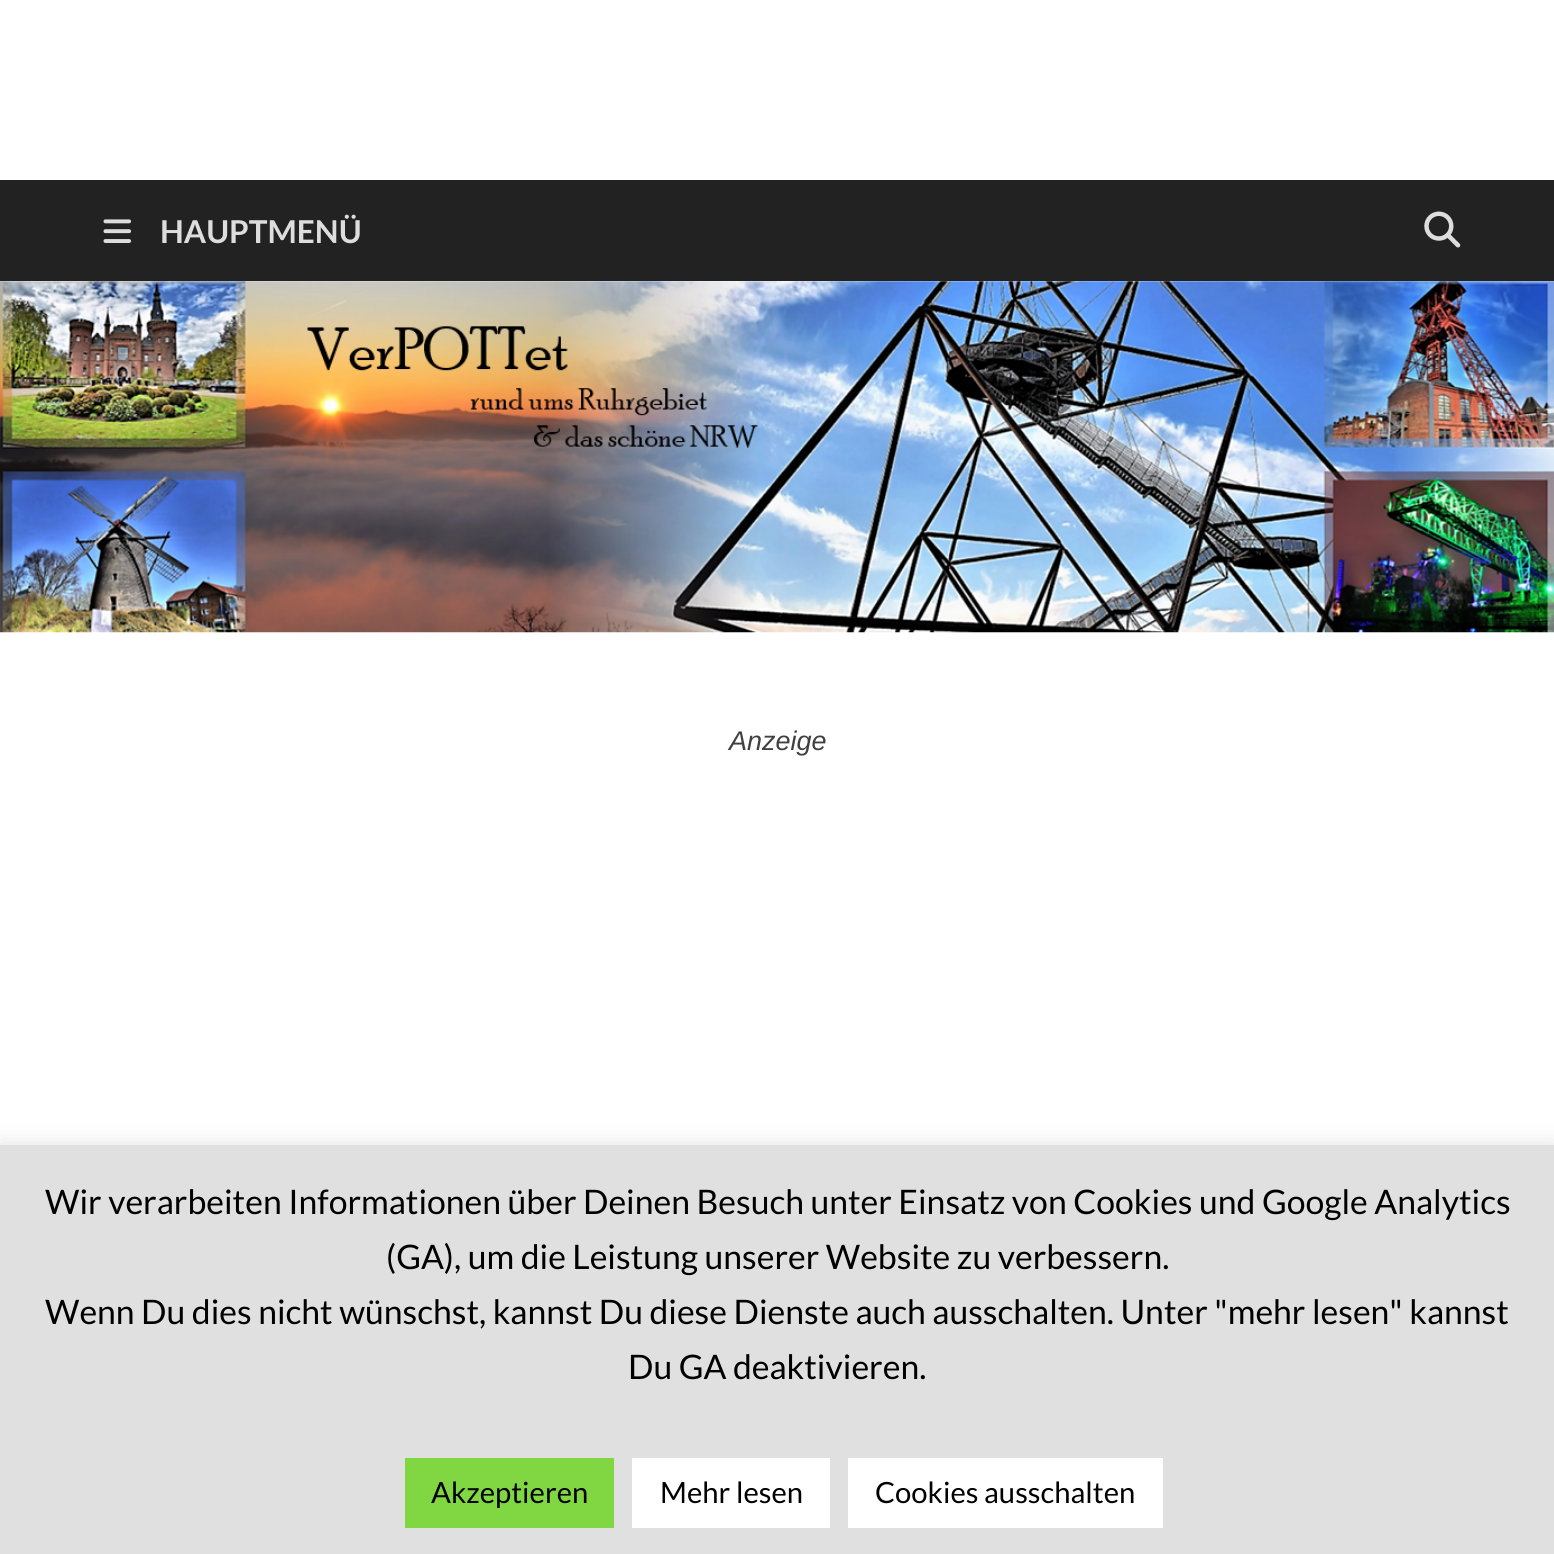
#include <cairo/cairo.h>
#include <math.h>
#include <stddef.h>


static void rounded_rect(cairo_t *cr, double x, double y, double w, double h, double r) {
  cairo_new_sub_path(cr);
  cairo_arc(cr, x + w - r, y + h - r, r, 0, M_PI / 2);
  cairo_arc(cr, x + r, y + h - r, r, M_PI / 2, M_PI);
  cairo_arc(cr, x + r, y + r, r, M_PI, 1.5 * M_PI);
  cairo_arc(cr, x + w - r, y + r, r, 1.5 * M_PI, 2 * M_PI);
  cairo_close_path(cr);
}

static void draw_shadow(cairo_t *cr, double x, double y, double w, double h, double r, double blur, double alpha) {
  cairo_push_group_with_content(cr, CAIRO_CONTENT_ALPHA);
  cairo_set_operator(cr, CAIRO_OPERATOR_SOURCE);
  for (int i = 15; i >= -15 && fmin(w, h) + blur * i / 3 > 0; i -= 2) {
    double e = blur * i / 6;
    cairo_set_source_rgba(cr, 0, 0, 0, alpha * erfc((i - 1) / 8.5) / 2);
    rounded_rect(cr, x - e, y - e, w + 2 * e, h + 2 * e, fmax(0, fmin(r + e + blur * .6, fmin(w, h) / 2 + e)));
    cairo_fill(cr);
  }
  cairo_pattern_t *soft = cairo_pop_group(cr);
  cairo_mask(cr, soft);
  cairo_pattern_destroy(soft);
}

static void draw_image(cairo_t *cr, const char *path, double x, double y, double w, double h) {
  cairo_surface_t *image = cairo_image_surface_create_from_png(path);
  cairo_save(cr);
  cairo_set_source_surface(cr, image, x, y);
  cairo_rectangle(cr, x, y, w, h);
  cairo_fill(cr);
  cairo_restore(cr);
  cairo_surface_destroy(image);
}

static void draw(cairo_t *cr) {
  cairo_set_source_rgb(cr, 1, 1, 1);
  cairo_paint(cr);
  cairo_set_source_rgb(cr, 34 / 255.0, 34 / 255.0, 34 / 255.0);
  cairo_rectangle(cr, 0, 180, 1554, 101);
  cairo_fill(cr);
  draw_image(cr, "images/1.png", 103, 219, 29, 24);
  draw_image(cr, "images/2.png", 1424, 211, 37, 37);
  draw_image(cr, "images/3.png", 0, 281, 1554, 352);
  cairo_set_source_rgb(cr, 172 / 255.0, 171 / 255.0, 171 / 255.0);
  draw_shadow(cr, 0, 1143, 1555, 410, 0, 11, 0.3);
  cairo_set_source_rgb(cr, 224 / 255.0, 224 / 255.0, 224 / 255.0);
  cairo_rectangle(cr, 0, 1145, 1554, 409);
  cairo_fill(cr);
  cairo_set_source_rgb(cr, 129 / 255.0, 215 / 255.0, 66 / 255.0);
  cairo_rectangle(cr, 405, 1458, 209, 70);
  cairo_fill(cr);
  cairo_set_source_rgb(cr, 1, 1, 1);
  cairo_rectangle(cr, 632, 1458, 198, 70);
  cairo_fill(cr);
  cairo_rectangle(cr, 848, 1458, 315, 70);
  cairo_fill(cr);
  cairo_select_font_face(cr, "Lato", CAIRO_FONT_SLANT_NORMAL, CAIRO_FONT_WEIGHT_BOLD);
  cairo_set_font_size(cr, 31.5);
  cairo_set_source_rgb(cr, 221 / 255.0, 221 / 255.0, 221 / 255.0);
  cairo_move_to(cr, 160, 243);
  cairo_show_text(cr, "HAUPTMENÜ");
  cairo_select_font_face(cr, "Liberation Sans", CAIRO_FONT_SLANT_ITALIC, CAIRO_FONT_WEIGHT_NORMAL);
  cairo_set_font_size(cr, 27);
  cairo_set_source_rgb(cr, 64 / 255.0, 64 / 255.0, 64 / 255.0);
  cairo_move_to(cr, 729, 750);
  cairo_show_text(cr, "Anzeige");
  cairo_select_font_face(cr, "Lato", CAIRO_FONT_SLANT_NORMAL, CAIRO_FONT_WEIGHT_NORMAL);
  cairo_set_font_size(cr, 33.75);
  cairo_set_source_rgb(cr, 0, 0, 0);
  cairo_move_to(cr, 45, 1214);
  cairo_show_text(cr, "Wir verarbeiten Informationen über Deinen Besuch unter Einsatz von Cookies und Google Analytics");
  cairo_move_to(cr, 386, 1269);
  cairo_show_text(cr, "(GA), um die Leistung unserer Website zu verbessern.");
  cairo_move_to(cr, 45, 1324);
  cairo_show_text(cr, "Wenn Du dies nicht wünschst, kannst Du diese Dienste auch ausschalten. Unter \"mehr lesen\" kannst");
  cairo_move_to(cr, 628, 1379);
  cairo_show_text(cr, "Du GA deaktivieren.");
  cairo_set_font_size(cr, 29.25);
  cairo_move_to(cr, 431, 1503);
  cairo_show_text(cr, "Akzeptieren");
  cairo_move_to(cr, 660, 1503);
  cairo_show_text(cr, "Mehr lesen");
  cairo_move_to(cr, 875, 1503);
  cairo_show_text(cr, "Cookies ausschalten");
}

int main(void) {
  cairo_surface_t *surface = cairo_image_surface_create(CAIRO_FORMAT_RGB24, 1554, 1554);
  cairo_t *cr = cairo_create(surface);
  cairo_font_options_t *options = cairo_font_options_create();
  cairo_font_options_set_hint_metrics(options, CAIRO_HINT_METRICS_OFF);
  cairo_font_options_set_hint_style(options, CAIRO_HINT_STYLE_NONE);
  cairo_set_font_options(cr, options);
  cairo_set_miter_limit(cr, 4);
  draw(cr);
  cairo_surface_write_to_png(surface, "out.png");
  cairo_font_options_destroy(options);
  cairo_destroy(cr);
  cairo_surface_destroy(surface);
  return 0;
}
